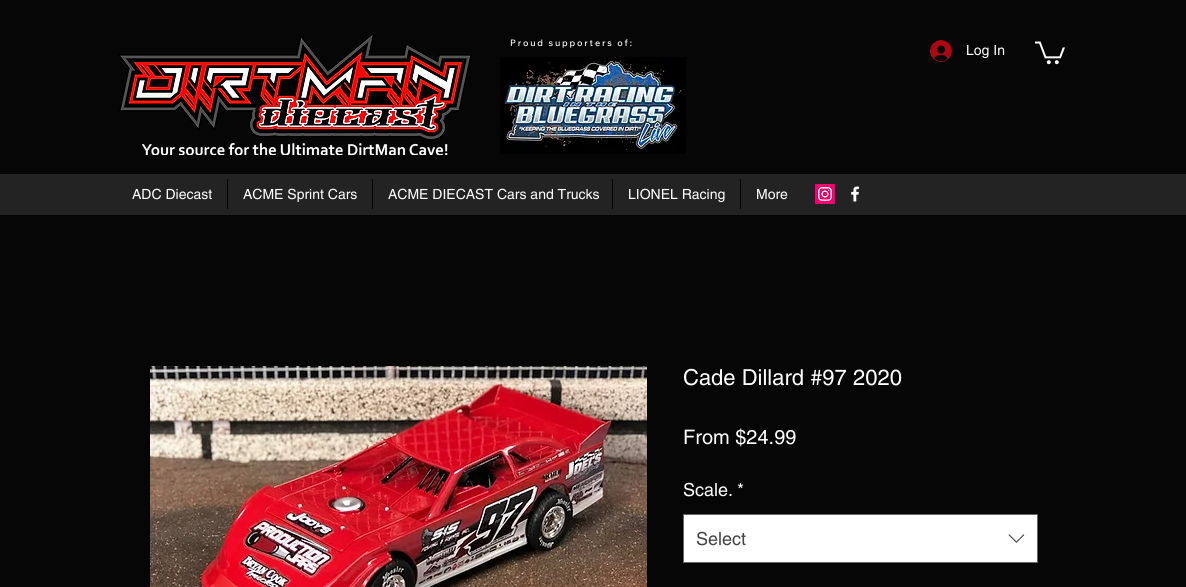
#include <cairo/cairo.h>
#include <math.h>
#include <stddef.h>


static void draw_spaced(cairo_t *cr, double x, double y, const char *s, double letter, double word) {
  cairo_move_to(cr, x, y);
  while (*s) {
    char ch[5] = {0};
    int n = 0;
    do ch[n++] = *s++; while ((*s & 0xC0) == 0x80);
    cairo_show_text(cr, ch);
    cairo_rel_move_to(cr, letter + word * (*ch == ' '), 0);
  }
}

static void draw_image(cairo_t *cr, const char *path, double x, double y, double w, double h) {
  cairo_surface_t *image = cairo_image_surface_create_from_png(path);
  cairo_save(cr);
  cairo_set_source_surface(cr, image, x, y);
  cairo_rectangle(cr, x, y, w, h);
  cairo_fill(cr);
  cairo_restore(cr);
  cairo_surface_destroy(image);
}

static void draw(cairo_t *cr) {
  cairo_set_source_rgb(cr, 5 / 255.0, 6 / 255.0, 5 / 255.0);
  cairo_paint(cr);
  draw_image(cr, "images/1.png", 118, 32, 354, 123);
  draw_image(cr, "images/2.png", 930, 40, 22, 22);
  draw_image(cr, "images/3.png", 1035, 41, 30, 24);
  draw_image(cr, "images/4.png", 500, 57, 186, 97);
  cairo_set_source_rgb(cr, 36 / 255.0, 35 / 255.0, 35 / 255.0);
  cairo_rectangle(cr, 0, 174, 1186, 41);
  cairo_fill(cr);
  cairo_set_source_rgb(cr, 5 / 255.0, 6 / 255.0, 5 / 255.0);
  cairo_rectangle(cr, 227, 179, 1, 30);
  cairo_fill(cr);
  cairo_rectangle(cr, 372, 179, 1, 30);
  cairo_fill(cr);
  cairo_rectangle(cr, 612, 179, 1, 30);
  cairo_fill(cr);
  cairo_rectangle(cr, 740, 179, 1, 30);
  cairo_fill(cr);
  draw_image(cr, "images/5.png", 815, 184, 20, 20);
  draw_image(cr, "images/6.png", 851, 186, 9, 16);
  draw_image(cr, "images/7.png", 150, 366, 497, 221);
  cairo_set_source_rgb(cr, 1, 1, 1);
  cairo_rectangle(cr, 683.5, 514.5, 354, 48);
  cairo_fill_preserve(cr);
  cairo_set_source_rgb(cr, 102 / 255.0, 102 / 255.0, 102 / 255.0);
  cairo_set_line_width(cr, 1);
  cairo_stroke(cr);
  draw_image(cr, "images/8.png", 1008, 534, 17, 9);
  cairo_select_font_face(cr, "Wix Madefor Text Medium", CAIRO_FONT_SLANT_NORMAL, CAIRO_FONT_WEIGHT_NORMAL);
  cairo_set_font_size(cr, 9);
  cairo_set_source_rgb(cr, 1, 1, 1);
  draw_spaced(cr, 510, 46, "Proud supporters of:", 1.8, 0);
  cairo_select_font_face(cr, "helvetica", CAIRO_FONT_SLANT_NORMAL, CAIRO_FONT_WEIGHT_NORMAL);
  cairo_set_font_size(cr, 14);
  cairo_move_to(cr, 966, 55);
  cairo_show_text(cr, "Log In");
  cairo_move_to(cr, 132, 199);
  cairo_show_text(cr, "ADC Diecast");
  cairo_move_to(cr, 243, 199);
  cairo_show_text(cr, "ACME Sprint Cars");
  cairo_move_to(cr, 388, 199);
  cairo_show_text(cr, "ACME DIECAST Cars and Trucks");
  cairo_move_to(cr, 628, 199);
  cairo_show_text(cr, "LIONEL Racing");
  cairo_move_to(cr, 756, 199);
  cairo_show_text(cr, "More");
  cairo_set_font_size(cr, 22);
  cairo_move_to(cr, 683, 385);
  cairo_show_text(cr, "Cade Dillard #97 2020");
  cairo_set_font_size(cr, 20);
  cairo_move_to(cr, 683, 444);
  cairo_show_text(cr, "From $24.99");
  cairo_set_font_size(cr, 18);
  cairo_move_to(cr, 683, 496);
  cairo_show_text(cr, "Scale.");
  cairo_move_to(cr, 737, 496);
  cairo_show_text(cr, "*");
  cairo_set_source_rgb(cr, 68 / 255.0, 68 / 255.0, 68 / 255.0);
  cairo_move_to(cr, 696, 545);
  cairo_show_text(cr, "Select");
}

int main(void) {
  cairo_surface_t *surface = cairo_image_surface_create(CAIRO_FORMAT_RGB24, 1186, 587);
  cairo_t *cr = cairo_create(surface);
  cairo_font_options_t *options = cairo_font_options_create();
  cairo_font_options_set_hint_metrics(options, CAIRO_HINT_METRICS_OFF);
  cairo_font_options_set_hint_style(options, CAIRO_HINT_STYLE_NONE);
  cairo_set_font_options(cr, options);
  cairo_set_miter_limit(cr, 4);
  draw(cr);
  cairo_surface_write_to_png(surface, "out.png");
  cairo_font_options_destroy(options);
  cairo_destroy(cr);
  cairo_surface_destroy(surface);
  return 0;
}
